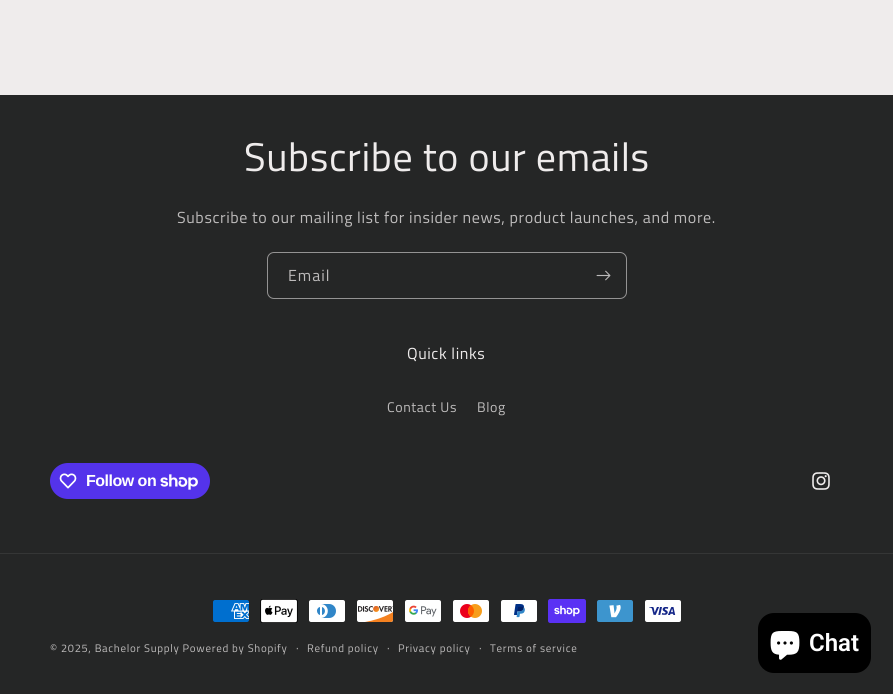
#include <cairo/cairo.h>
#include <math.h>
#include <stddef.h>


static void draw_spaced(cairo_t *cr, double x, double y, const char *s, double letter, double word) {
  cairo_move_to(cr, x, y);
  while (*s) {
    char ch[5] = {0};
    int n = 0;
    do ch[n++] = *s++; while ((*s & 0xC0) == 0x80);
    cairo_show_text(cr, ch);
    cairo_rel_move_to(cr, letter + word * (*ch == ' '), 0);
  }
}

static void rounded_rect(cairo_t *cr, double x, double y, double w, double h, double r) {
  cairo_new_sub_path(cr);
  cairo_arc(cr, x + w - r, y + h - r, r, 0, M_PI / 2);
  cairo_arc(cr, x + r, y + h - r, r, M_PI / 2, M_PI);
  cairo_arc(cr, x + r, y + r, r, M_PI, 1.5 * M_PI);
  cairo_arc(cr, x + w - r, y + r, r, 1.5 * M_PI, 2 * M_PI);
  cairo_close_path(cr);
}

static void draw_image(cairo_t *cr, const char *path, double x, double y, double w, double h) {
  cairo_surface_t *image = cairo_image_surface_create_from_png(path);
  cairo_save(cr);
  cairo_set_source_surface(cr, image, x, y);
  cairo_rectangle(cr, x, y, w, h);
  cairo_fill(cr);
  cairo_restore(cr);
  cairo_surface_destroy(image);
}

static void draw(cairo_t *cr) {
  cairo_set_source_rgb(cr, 239 / 255.0, 236 / 255.0, 236 / 255.0);
  cairo_paint(cr);
  cairo_set_source_rgb(cr, 37 / 255.0, 38 / 255.0, 38 / 255.0);
  cairo_rectangle(cr, 0, 95, 893, 599);
  cairo_fill(cr);
  rounded_rect(cr, 267.5, 252.5, 359, 46, 6.5);
  cairo_set_source_rgb(cr, 148 / 255.0, 147 / 255.0, 147 / 255.0);
  cairo_set_line_width(cr, 1);
  cairo_stroke(cr);
  draw_image(cr, "images/1.png", 596, 270, 15, 11);
  cairo_set_source_rgb(cr, 84 / 255.0, 51 / 255.0, 235 / 255.0);
  rounded_rect(cr, 50, 463, 160, 36, 18);
  cairo_fill(cr);
  draw_image(cr, "images/2.png", 59, 473, 18, 16);
  draw_image(cr, "images/3.png", 160, 474, 38, 16);
  draw_image(cr, "images/4.png", 812, 472, 18, 18);
  cairo_set_source_rgb(cr, 53 / 255.0, 54 / 255.0, 54 / 255.0);
  cairo_rectangle(cr, 0, 553, 893, 1);
  cairo_fill(cr);
  draw_image(cr, "images/5.png", 213, 600, 36, 22);
  draw_image(cr, "images/6.png", 260, 599, 38, 24);
  draw_image(cr, "images/7.png", 309, 600, 36, 22);
  draw_image(cr, "images/8.png", 357, 600, 36, 22);
  draw_image(cr, "images/9.png", 405, 600, 36, 22);
  draw_image(cr, "images/10.png", 453, 600, 36, 22);
  draw_image(cr, "images/11.png", 501, 600, 36, 22);
  draw_image(cr, "images/12.png", 548, 599, 38, 24);
  draw_image(cr, "images/13.png", 597, 600, 36, 22);
  draw_image(cr, "images/14.png", 645, 600, 36, 22);
  cairo_set_source_rgb(cr, 0, 0, 0);
  rounded_rect(cr, 758, 613, 113, 60, 16);
  cairo_fill(cr);
  draw_image(cr, "images/15.png", 770, 631, 30, 29);
  cairo_select_font_face(cr, "Titillium Web", CAIRO_FONT_SLANT_NORMAL, CAIRO_FONT_WEIGHT_NORMAL);
  cairo_set_font_size(cr, 40);
  cairo_set_source_rgb(cr, 239 / 255.0, 236 / 255.0, 236 / 255.0);
  draw_spaced(cr, 244, 171, "Subscribe to our emails", 0.6, 0);
  cairo_set_font_size(cr, 16);
  cairo_set_source_rgb(cr, 189 / 255.0, 187 / 255.0, 187 / 255.0);
  draw_spaced(cr, 177, 223, "Subscribe to our mailing list for insider news, product launches, and more.", 0.6, 0);
  draw_spaced(cr, 288, 281, "Email", 1, 0);
  cairo_set_source_rgb(cr, 239 / 255.0, 236 / 255.0, 236 / 255.0);
  draw_spaced(cr, 407, 359, "Quick links", 0.6, 0);
  cairo_set_font_size(cr, 14);
  cairo_set_source_rgb(cr, 189 / 255.0, 187 / 255.0, 187 / 255.0);
  draw_spaced(cr, 387, 412, "Contact Us", 0.6, 0);
  draw_spaced(cr, 477, 412, "Blog", 0.6, 0);
  cairo_select_font_face(cr, "Liberation Sans", CAIRO_FONT_SLANT_NORMAL, CAIRO_FONT_WEIGHT_BOLD);
  cairo_set_font_size(cr, 16);
  cairo_set_source_rgb(cr, 1, 1, 1);
  draw_spaced(cr, 86, 486, "Follow on", -0.5, 0);
  cairo_select_font_face(cr, "Titillium Web", CAIRO_FONT_SLANT_NORMAL, CAIRO_FONT_WEIGHT_NORMAL);
  cairo_set_font_size(cr, 11);
  cairo_set_source_rgb(cr, 189 / 255.0, 187 / 255.0, 187 / 255.0);
  draw_spaced(cr, 50, 652, "© 2025, Bachelor Supply Powered by Shopify", 0.7, 0);
  cairo_set_font_size(cr, 12);
  draw_spaced(cr, 296, 652, "·", 0.7, 0);
  cairo_set_font_size(cr, 11);
  draw_spaced(cr, 307, 652, "Refund policy", 0.7, 0);
  cairo_set_font_size(cr, 12);
  draw_spaced(cr, 387, 652, "·", 0.7, 0);
  cairo_set_font_size(cr, 11);
  draw_spaced(cr, 398, 652, "Privacy policy", 0.7, 0);
  cairo_set_font_size(cr, 12);
  draw_spaced(cr, 479, 652, "·", 0.7, 0);
  cairo_set_font_size(cr, 11);
  draw_spaced(cr, 490, 652, "Terms of service", 0.7, 0);
  cairo_select_font_face(cr, "Roboto SemiBold", CAIRO_FONT_SLANT_NORMAL, CAIRO_FONT_WEIGHT_NORMAL);
  cairo_set_font_size(cr, 24);
  cairo_set_source_rgb(cr, 1, 1, 1);
  cairo_move_to(cr, 809, 651);
  cairo_show_text(cr, "Chat");
}

int main(void) {
  cairo_surface_t *surface = cairo_image_surface_create(CAIRO_FORMAT_RGB24, 893, 694);
  cairo_t *cr = cairo_create(surface);
  cairo_font_options_t *options = cairo_font_options_create();
  cairo_font_options_set_hint_metrics(options, CAIRO_HINT_METRICS_OFF);
  cairo_font_options_set_hint_style(options, CAIRO_HINT_STYLE_NONE);
  cairo_set_font_options(cr, options);
  cairo_set_miter_limit(cr, 4);
  draw(cr);
  cairo_surface_write_to_png(surface, "out.png");
  cairo_font_options_destroy(options);
  cairo_destroy(cr);
  cairo_surface_destroy(surface);
  return 0;
}
